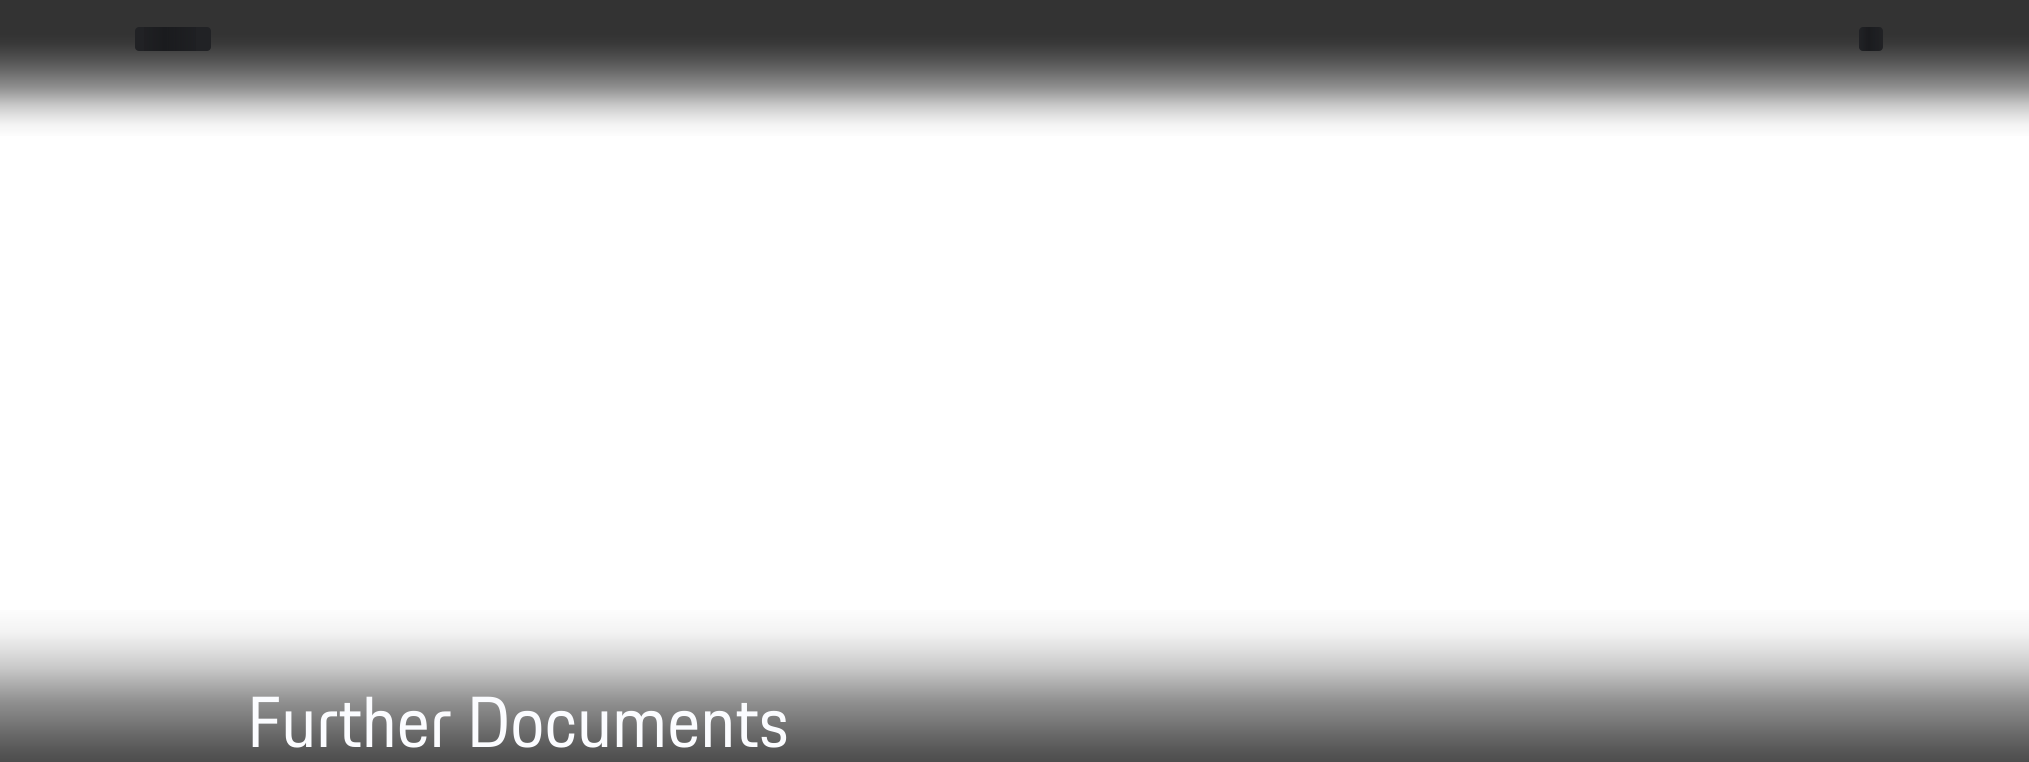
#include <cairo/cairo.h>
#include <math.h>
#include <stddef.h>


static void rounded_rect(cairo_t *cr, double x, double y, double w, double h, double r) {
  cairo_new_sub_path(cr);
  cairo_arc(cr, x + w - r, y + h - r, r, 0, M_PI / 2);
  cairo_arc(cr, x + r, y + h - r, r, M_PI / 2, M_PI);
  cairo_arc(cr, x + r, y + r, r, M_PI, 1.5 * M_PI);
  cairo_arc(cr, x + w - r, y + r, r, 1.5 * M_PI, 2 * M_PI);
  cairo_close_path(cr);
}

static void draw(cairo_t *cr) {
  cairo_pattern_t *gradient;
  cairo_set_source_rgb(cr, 1, 1, 1);
  cairo_paint(cr);
  gradient = cairo_pattern_create_linear(1015, 0, 1015, 148);
  cairo_pattern_add_color_stop_rgba(gradient, 0, 51 / 255.0, 51 / 255.0, 51 / 255.0, 1);
  cairo_pattern_add_color_stop_rgba(gradient, 0.23, 51 / 255.0, 51 / 255.0, 51 / 255.0, 1);
  cairo_pattern_add_color_stop_rgba(gradient, 0.29, 56 / 255.0, 56 / 255.0, 56 / 255.0, 1);
  cairo_pattern_add_color_stop_rgba(gradient, 0.35, 69 / 255.0, 69 / 255.0, 69 / 255.0, 1);
  cairo_pattern_add_color_stop_rgba(gradient, 0.41, 84 / 255.0, 84 / 255.0, 84 / 255.0, 1);
  cairo_pattern_add_color_stop_rgba(gradient, 0.47, 102 / 255.0, 102 / 255.0, 102 / 255.0, 1);
  cairo_pattern_add_color_stop_rgba(gradient, 0.53, 123 / 255.0, 123 / 255.0, 123 / 255.0, 1);
  cairo_pattern_add_color_stop_rgba(gradient, 0.59, 143 / 255.0, 143 / 255.0, 143 / 255.0, 1);
  cairo_pattern_add_color_stop_rgba(gradient, 0.65, 171 / 255.0, 171 / 255.0, 171 / 255.0, 1);
  cairo_pattern_add_color_stop_rgba(gradient, 0.71, 200 / 255.0, 200 / 255.0, 200 / 255.0, 1);
  cairo_pattern_add_color_stop_rgba(gradient, 0.78, 225 / 255.0, 225 / 255.0, 225 / 255.0, 1);
  cairo_pattern_add_color_stop_rgba(gradient, 0.84, 243 / 255.0, 243 / 255.0, 243 / 255.0, 1);
  cairo_pattern_add_color_stop_rgba(gradient, 0.92, 253 / 255.0, 253 / 255.0, 253 / 255.0, 1);
  cairo_pattern_add_color_stop_rgba(gradient, 1, 1, 1, 1, 1);
  cairo_set_source(cr, gradient);
  cairo_pattern_destroy(gradient);
  cairo_rectangle(cr, 0, 0, 2029, 136);
  cairo_fill(cr);
  cairo_set_source_rgb(cr, 33 / 255.0, 34 / 255.0, 37 / 255.0);
  rounded_rect(cr, 135, 27, 76, 24, 4);
  cairo_fill(cr);
  gradient = cairo_pattern_create_linear(135, 39, 287, 39);
  cairo_pattern_add_color_stop_rgba(gradient, 0, 26 / 255.0, 27 / 255.0, 30 / 255.0, 0);
  cairo_pattern_add_color_stop_rgba(gradient, 0.2, 26 / 255.0, 27 / 255.0, 30 / 255.0, 1);
  cairo_pattern_add_color_stop_rgba(gradient, 0.5, 26 / 255.0, 27 / 255.0, 30 / 255.0, 0);
  cairo_set_source(cr, gradient);
  cairo_pattern_destroy(gradient);
  cairo_rectangle(cr, 144, 27, 52, 24);
  cairo_fill(cr);
  cairo_set_source_rgb(cr, 33 / 255.0, 34 / 255.0, 37 / 255.0);
  rounded_rect(cr, 1859, 27, 24, 24, 4);
  cairo_fill(cr);
  gradient = cairo_pattern_create_linear(1859, 39, 1907, 39);
  cairo_pattern_add_color_stop_rgba(gradient, 0, 26 / 255.0, 27 / 255.0, 30 / 255.0, 0);
  cairo_pattern_add_color_stop_rgba(gradient, 0.2, 26 / 255.0, 27 / 255.0, 30 / 255.0, 1);
  cairo_pattern_add_color_stop_rgba(gradient, 0.5, 26 / 255.0, 27 / 255.0, 30 / 255.0, 0);
  cairo_set_source(cr, gradient);
  cairo_pattern_destroy(gradient);
  rounded_rect(cr, 1859, 27, 24, 24, 4);
  cairo_fill(cr);
  gradient = cairo_pattern_create_linear(1015, 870, 1015, 586);
  cairo_pattern_add_color_stop_rgba(gradient, 0, 51 / 255.0, 51 / 255.0, 51 / 255.0, 1);
  cairo_pattern_add_color_stop_rgba(gradient, 0.23, 51 / 255.0, 51 / 255.0, 51 / 255.0, 1);
  cairo_pattern_add_color_stop_rgba(gradient, 0.29, 56 / 255.0, 56 / 255.0, 56 / 255.0, 1);
  cairo_pattern_add_color_stop_rgba(gradient, 0.35, 69 / 255.0, 69 / 255.0, 69 / 255.0, 1);
  cairo_pattern_add_color_stop_rgba(gradient, 0.41, 84 / 255.0, 84 / 255.0, 84 / 255.0, 1);
  cairo_pattern_add_color_stop_rgba(gradient, 0.47, 102 / 255.0, 102 / 255.0, 102 / 255.0, 1);
  cairo_pattern_add_color_stop_rgba(gradient, 0.53, 123 / 255.0, 123 / 255.0, 123 / 255.0, 1);
  cairo_pattern_add_color_stop_rgba(gradient, 0.59, 143 / 255.0, 143 / 255.0, 143 / 255.0, 1);
  cairo_pattern_add_color_stop_rgba(gradient, 0.65, 171 / 255.0, 171 / 255.0, 171 / 255.0, 1);
  cairo_pattern_add_color_stop_rgba(gradient, 0.71, 200 / 255.0, 200 / 255.0, 200 / 255.0, 1);
  cairo_pattern_add_color_stop_rgba(gradient, 0.78, 225 / 255.0, 225 / 255.0, 225 / 255.0, 1);
  cairo_pattern_add_color_stop_rgba(gradient, 0.84, 243 / 255.0, 243 / 255.0, 243 / 255.0, 1);
  cairo_pattern_add_color_stop_rgba(gradient, 0.92, 253 / 255.0, 253 / 255.0, 253 / 255.0, 1);
  cairo_pattern_add_color_stop_rgba(gradient, 1, 1, 1, 1, 1);
  cairo_set_source(cr, gradient);
  cairo_pattern_destroy(gradient);
  cairo_rectangle(cr, 0, 610, 2029, 152);
  cairo_fill(cr);
  cairo_select_font_face(cr, "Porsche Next", CAIRO_FONT_SLANT_NORMAL, CAIRO_FONT_WEIGHT_NORMAL);
  cairo_set_font_size(cr, 67.25);
  cairo_set_source_rgb(cr, 251 / 255.0, 252 / 255.0, 1);
  cairo_move_to(cr, 247, 747);
  cairo_show_text(cr, "Further Documents");
}

int main(void) {
  cairo_surface_t *surface = cairo_image_surface_create(CAIRO_FORMAT_RGB24, 2029, 762);
  cairo_t *cr = cairo_create(surface);
  cairo_font_options_t *options = cairo_font_options_create();
  cairo_font_options_set_hint_metrics(options, CAIRO_HINT_METRICS_OFF);
  cairo_font_options_set_hint_style(options, CAIRO_HINT_STYLE_NONE);
  cairo_set_font_options(cr, options);
  cairo_set_miter_limit(cr, 4);
  draw(cr);
  cairo_surface_write_to_png(surface, "out.png");
  cairo_font_options_destroy(options);
  cairo_destroy(cr);
  cairo_surface_destroy(surface);
  return 0;
}
